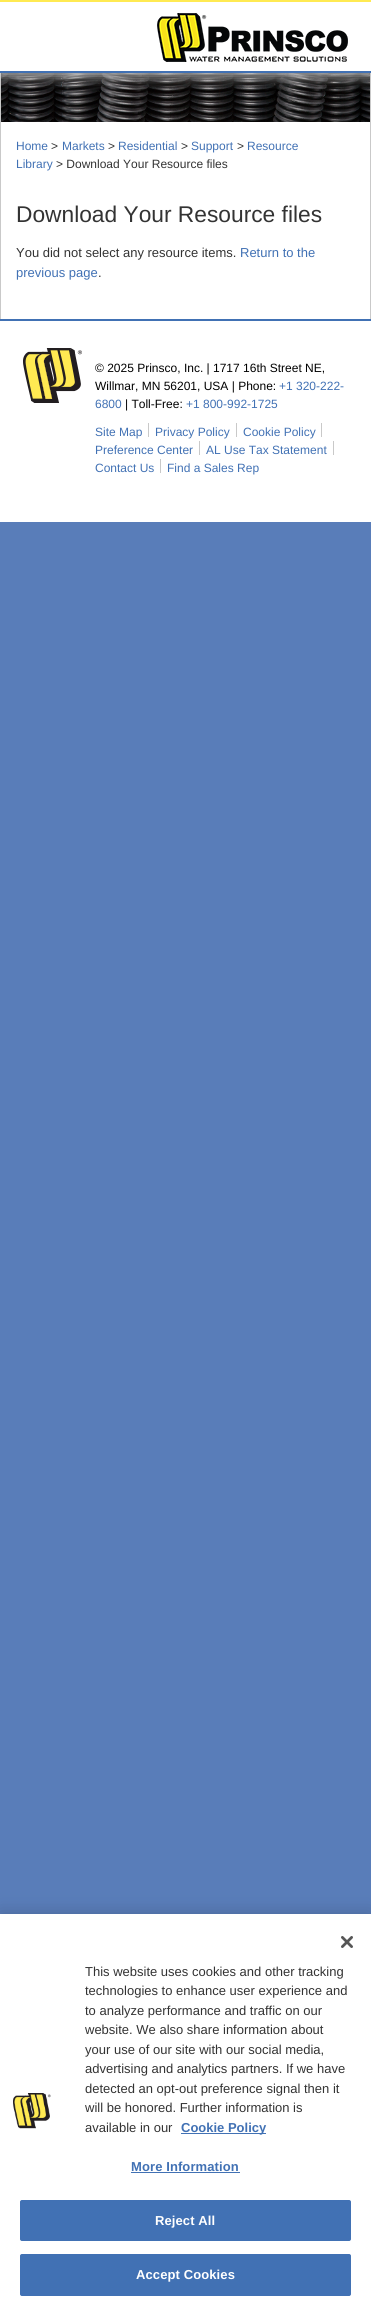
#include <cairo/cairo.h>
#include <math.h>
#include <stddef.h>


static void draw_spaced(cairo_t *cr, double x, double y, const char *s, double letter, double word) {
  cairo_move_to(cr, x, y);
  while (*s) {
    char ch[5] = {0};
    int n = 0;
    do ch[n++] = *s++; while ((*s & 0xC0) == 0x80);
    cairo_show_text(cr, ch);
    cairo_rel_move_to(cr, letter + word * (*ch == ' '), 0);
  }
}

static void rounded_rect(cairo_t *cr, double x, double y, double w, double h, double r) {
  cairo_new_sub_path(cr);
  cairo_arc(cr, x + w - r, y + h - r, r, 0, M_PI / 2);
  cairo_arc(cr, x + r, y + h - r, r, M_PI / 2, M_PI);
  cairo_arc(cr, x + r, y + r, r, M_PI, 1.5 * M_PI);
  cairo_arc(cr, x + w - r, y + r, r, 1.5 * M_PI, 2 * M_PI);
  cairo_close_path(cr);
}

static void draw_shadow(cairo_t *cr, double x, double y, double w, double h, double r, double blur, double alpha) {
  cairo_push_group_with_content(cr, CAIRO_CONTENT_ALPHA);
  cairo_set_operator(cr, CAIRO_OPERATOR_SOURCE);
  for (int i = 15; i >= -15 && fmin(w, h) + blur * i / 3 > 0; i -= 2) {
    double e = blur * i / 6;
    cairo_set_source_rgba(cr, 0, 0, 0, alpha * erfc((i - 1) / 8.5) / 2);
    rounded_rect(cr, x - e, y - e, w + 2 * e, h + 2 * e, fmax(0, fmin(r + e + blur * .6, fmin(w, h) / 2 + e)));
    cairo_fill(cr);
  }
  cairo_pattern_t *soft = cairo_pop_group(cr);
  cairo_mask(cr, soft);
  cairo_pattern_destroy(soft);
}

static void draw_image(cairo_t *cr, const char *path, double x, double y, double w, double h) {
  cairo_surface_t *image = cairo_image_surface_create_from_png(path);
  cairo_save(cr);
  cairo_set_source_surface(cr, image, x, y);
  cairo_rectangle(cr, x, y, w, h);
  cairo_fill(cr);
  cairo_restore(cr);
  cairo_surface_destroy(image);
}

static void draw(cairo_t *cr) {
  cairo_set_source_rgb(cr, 89 / 255.0, 125 / 255.0, 185 / 255.0);
  cairo_paint(cr);
  cairo_set_source_rgb(cr, 1, 1, 1);
  cairo_rectangle(cr, 0, 2, 371, 520);
  cairo_fill(cr);
  cairo_set_source_rgb(cr, 201 / 255.0, 201 / 255.0, 201 / 255.0);
  cairo_rectangle(cr, 370, 73, 1, 246);
  cairo_fill(cr);
  cairo_rectangle(cr, 0, 73, 1, 246);
  cairo_fill(cr);
  draw_image(cr, "images/2.png", 1, 73, 369, 49);
  cairo_save(cr);
  cairo_rectangle(cr, 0, 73, 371, 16);
  cairo_clip(cr);
  cairo_set_source_rgb(cr, 201 / 255.0, 201 / 255.0, 201 / 255.0);
  draw_shadow(cr, 0, 3, 371, 73, 0, 6.5, 1);
  cairo_restore(cr);
  cairo_set_source_rgb(cr, 1, 234 / 255.0, 82 / 255.0);
  cairo_rectangle(cr, 0, 0, 371, 2);
  cairo_fill(cr);
  cairo_set_source_rgb(cr, 65 / 255.0, 113 / 255.0, 180 / 255.0);
  cairo_rectangle(cr, 0, 71, 371, 2);
  cairo_fill(cr);
  draw_image(cr, "images/1.png", 157, 13, 191, 49);
  cairo_rectangle(cr, 0, 319, 371, 2);
  cairo_fill(cr);
  draw_image(cr, "images/3.png", 23, 348, 59, 55);
  cairo_set_source_rgb(cr, 201 / 255.0, 201 / 255.0, 201 / 255.0);
  cairo_rectangle(cr, 148, 423, 1, 14);
  cairo_fill(cr);
  cairo_rectangle(cr, 236, 423, 1, 14);
  cairo_fill(cr);
  cairo_rectangle(cr, 321, 423, 1, 14);
  cairo_fill(cr);
  cairo_rectangle(cr, 199, 441, 1, 14);
  cairo_fill(cr);
  cairo_rectangle(cr, 333, 441, 1, 14);
  cairo_fill(cr);
  cairo_rectangle(cr, 160, 459, 1, 14);
  cairo_fill(cr);
  cairo_set_source_rgb(cr, 0, 0, 0);
  draw_shadow(cr, 0, 1914, 371, 395, 0, 9, 0.2);
  cairo_set_source_rgb(cr, 1, 1, 1);
  cairo_rectangle(cr, 0, 1914, 371, 395);
  cairo_fill(cr);
  draw_image(cr, "images/4.png", 341, 1936, 12, 12);
  draw_image(cr, "images/5.png", 13, 2093, 38, 36);
  cairo_set_source_rgb(cr, 65 / 255.0, 113 / 255.0, 180 / 255.0);
  cairo_rectangle(cr, 181, 2133, 85, 1);
  cairo_fill(cr);
  cairo_rectangle(cr, 131, 2172, 109, 1);
  cairo_fill(cr);
  rounded_rect(cr, 20.5, 2200.5, 330, 40, 1.5);
  cairo_fill_preserve(cr);
  cairo_set_line_width(cr, 1);
  cairo_stroke(cr);
  rounded_rect(cr, 20.5, 2254.5, 330, 41, 1.5);
  cairo_fill_preserve(cr);
  cairo_stroke(cr);
  cairo_select_font_face(cr, "Liberation Sans", CAIRO_FONT_SLANT_NORMAL, CAIRO_FONT_WEIGHT_NORMAL);
  cairo_set_font_size(cr, 12);
  cairo_move_to(cr, 16, 150);
  cairo_show_text(cr, "Home");
  cairo_set_source_rgb(cr, 51 / 255.0, 51 / 255.0, 51 / 255.0);
  cairo_move_to(cr, 51, 150);
  cairo_show_text(cr, ">");
  cairo_set_source_rgb(cr, 65 / 255.0, 113 / 255.0, 180 / 255.0);
  cairo_move_to(cr, 62, 150);
  cairo_show_text(cr, "Markets");
  cairo_set_source_rgb(cr, 51 / 255.0, 51 / 255.0, 51 / 255.0);
  cairo_move_to(cr, 108, 150);
  cairo_show_text(cr, ">");
  cairo_set_source_rgb(cr, 65 / 255.0, 113 / 255.0, 180 / 255.0);
  cairo_move_to(cr, 118, 150);
  cairo_show_text(cr, "Residential");
  cairo_set_source_rgb(cr, 51 / 255.0, 51 / 255.0, 51 / 255.0);
  cairo_move_to(cr, 181, 150);
  cairo_show_text(cr, ">");
  cairo_set_source_rgb(cr, 65 / 255.0, 113 / 255.0, 180 / 255.0);
  cairo_move_to(cr, 191, 150);
  cairo_show_text(cr, "Support");
  cairo_set_source_rgb(cr, 51 / 255.0, 51 / 255.0, 51 / 255.0);
  cairo_move_to(cr, 237, 150);
  cairo_show_text(cr, ">");
  cairo_set_source_rgb(cr, 65 / 255.0, 113 / 255.0, 180 / 255.0);
  cairo_move_to(cr, 247, 150);
  cairo_show_text(cr, "Resource");
  cairo_move_to(cr, 16, 168);
  cairo_show_text(cr, "Library");
  cairo_set_source_rgb(cr, 51 / 255.0, 51 / 255.0, 51 / 255.0);
  cairo_move_to(cr, 56, 168);
  cairo_show_text(cr, "> Download Your Resource files");
  cairo_set_font_size(cr, 22.75);
  cairo_move_to(cr, 16, 222);
  cairo_show_text(cr, "Download Your Resource files");
  cairo_set_font_size(cr, 13);
  cairo_move_to(cr, 16, 257);
  cairo_show_text(cr, "You did not select any resource items.");
  cairo_set_source_rgb(cr, 65 / 255.0, 113 / 255.0, 180 / 255.0);
  cairo_move_to(cr, 240, 257);
  cairo_show_text(cr, "Return to the");
  cairo_move_to(cr, 16, 277);
  cairo_show_text(cr, "previous page");
  cairo_set_source_rgb(cr, 51 / 255.0, 51 / 255.0, 51 / 255.0);
  cairo_move_to(cr, 98, 277);
  cairo_show_text(cr, ".");
  cairo_set_font_size(cr, 12);
  cairo_set_source_rgb(cr, 0, 0, 0);
  cairo_move_to(cr, 95, 372);
  cairo_show_text(cr, "© 2025 Prinsco, Inc. | 1717 16th Street NE,");
  cairo_move_to(cr, 95, 390);
  cairo_show_text(cr, "Willmar, MN 56201, USA | Phone:");
  cairo_set_source_rgb(cr, 65 / 255.0, 113 / 255.0, 180 / 255.0);
  cairo_move_to(cr, 279, 390);
  cairo_show_text(cr, "+1 320-222-");
  cairo_move_to(cr, 95, 408);
  cairo_show_text(cr, "6800");
  cairo_set_source_rgb(cr, 0, 0, 0);
  cairo_move_to(cr, 125, 408);
  cairo_show_text(cr, "| Toll-Free:");
  cairo_set_source_rgb(cr, 65 / 255.0, 113 / 255.0, 180 / 255.0);
  cairo_move_to(cr, 186, 408);
  cairo_show_text(cr, "+1 800-992-1725");
  cairo_move_to(cr, 95, 436);
  cairo_show_text(cr, "Site Map");
  cairo_move_to(cr, 155, 436);
  cairo_show_text(cr, "Privacy Policy");
  cairo_move_to(cr, 243, 436);
  cairo_show_text(cr, "Cookie Policy");
  cairo_move_to(cr, 95, 454);
  cairo_show_text(cr, "Preference Center");
  cairo_move_to(cr, 206, 454);
  cairo_show_text(cr, "AL Use Tax Statement");
  cairo_move_to(cr, 95, 472);
  cairo_show_text(cr, "Contact Us");
  cairo_move_to(cr, 167, 472);
  cairo_show_text(cr, "Find a Sales Rep");
  cairo_set_font_size(cr, 13);
  cairo_set_source_rgb(cr, 51 / 255.0, 51 / 255.0, 51 / 255.0);
  cairo_move_to(cr, 85, 1976);
  cairo_show_text(cr, "This website uses cookies and other tracking");
  cairo_move_to(cr, 85, 1995);
  cairo_show_text(cr, "technologies to enhance user experience and");
  cairo_move_to(cr, 85, 2015);
  cairo_show_text(cr, "to analyze performance and traffic on our");
  cairo_move_to(cr, 85, 2034);
  cairo_show_text(cr, "website. We also share information about");
  cairo_move_to(cr, 85, 2054);
  cairo_show_text(cr, "your use of our site with our social media,");
  cairo_move_to(cr, 85, 2073);
  cairo_show_text(cr, "advertising and analytics partners. If we have");
  cairo_move_to(cr, 85, 2093);
  cairo_show_text(cr, "detected an opt-out preference signal then it");
  cairo_move_to(cr, 85, 2112);
  cairo_show_text(cr, "will be honored. Further information is");
  cairo_move_to(cr, 85, 2132);
  cairo_show_text(cr, "available in our");
  cairo_select_font_face(cr, "Liberation Sans", CAIRO_FONT_SLANT_NORMAL, CAIRO_FONT_WEIGHT_BOLD);
  cairo_set_source_rgb(cr, 65 / 255.0, 113 / 255.0, 180 / 255.0);
  cairo_move_to(cr, 181, 2132);
  cairo_show_text(cr, "Cookie Policy");
  draw_spaced(cr, 131, 2171, "More Information", 0.1, 0);
  cairo_set_source_rgb(cr, 1, 1, 1);
  draw_spaced(cr, 155, 2225, "Reject All", 0.1, 0);
  draw_spaced(cr, 136, 2279, "Accept Cookies", 0.1, 0);
}

int main(void) {
  cairo_surface_t *surface = cairo_image_surface_create(CAIRO_FORMAT_RGB24, 371, 2309);
  cairo_t *cr = cairo_create(surface);
  cairo_font_options_t *options = cairo_font_options_create();
  cairo_font_options_set_hint_metrics(options, CAIRO_HINT_METRICS_OFF);
  cairo_font_options_set_hint_style(options, CAIRO_HINT_STYLE_NONE);
  cairo_set_font_options(cr, options);
  cairo_set_miter_limit(cr, 4);
  draw(cr);
  cairo_surface_write_to_png(surface, "out.png");
  cairo_font_options_destroy(options);
  cairo_destroy(cr);
  cairo_surface_destroy(surface);
  return 0;
}
